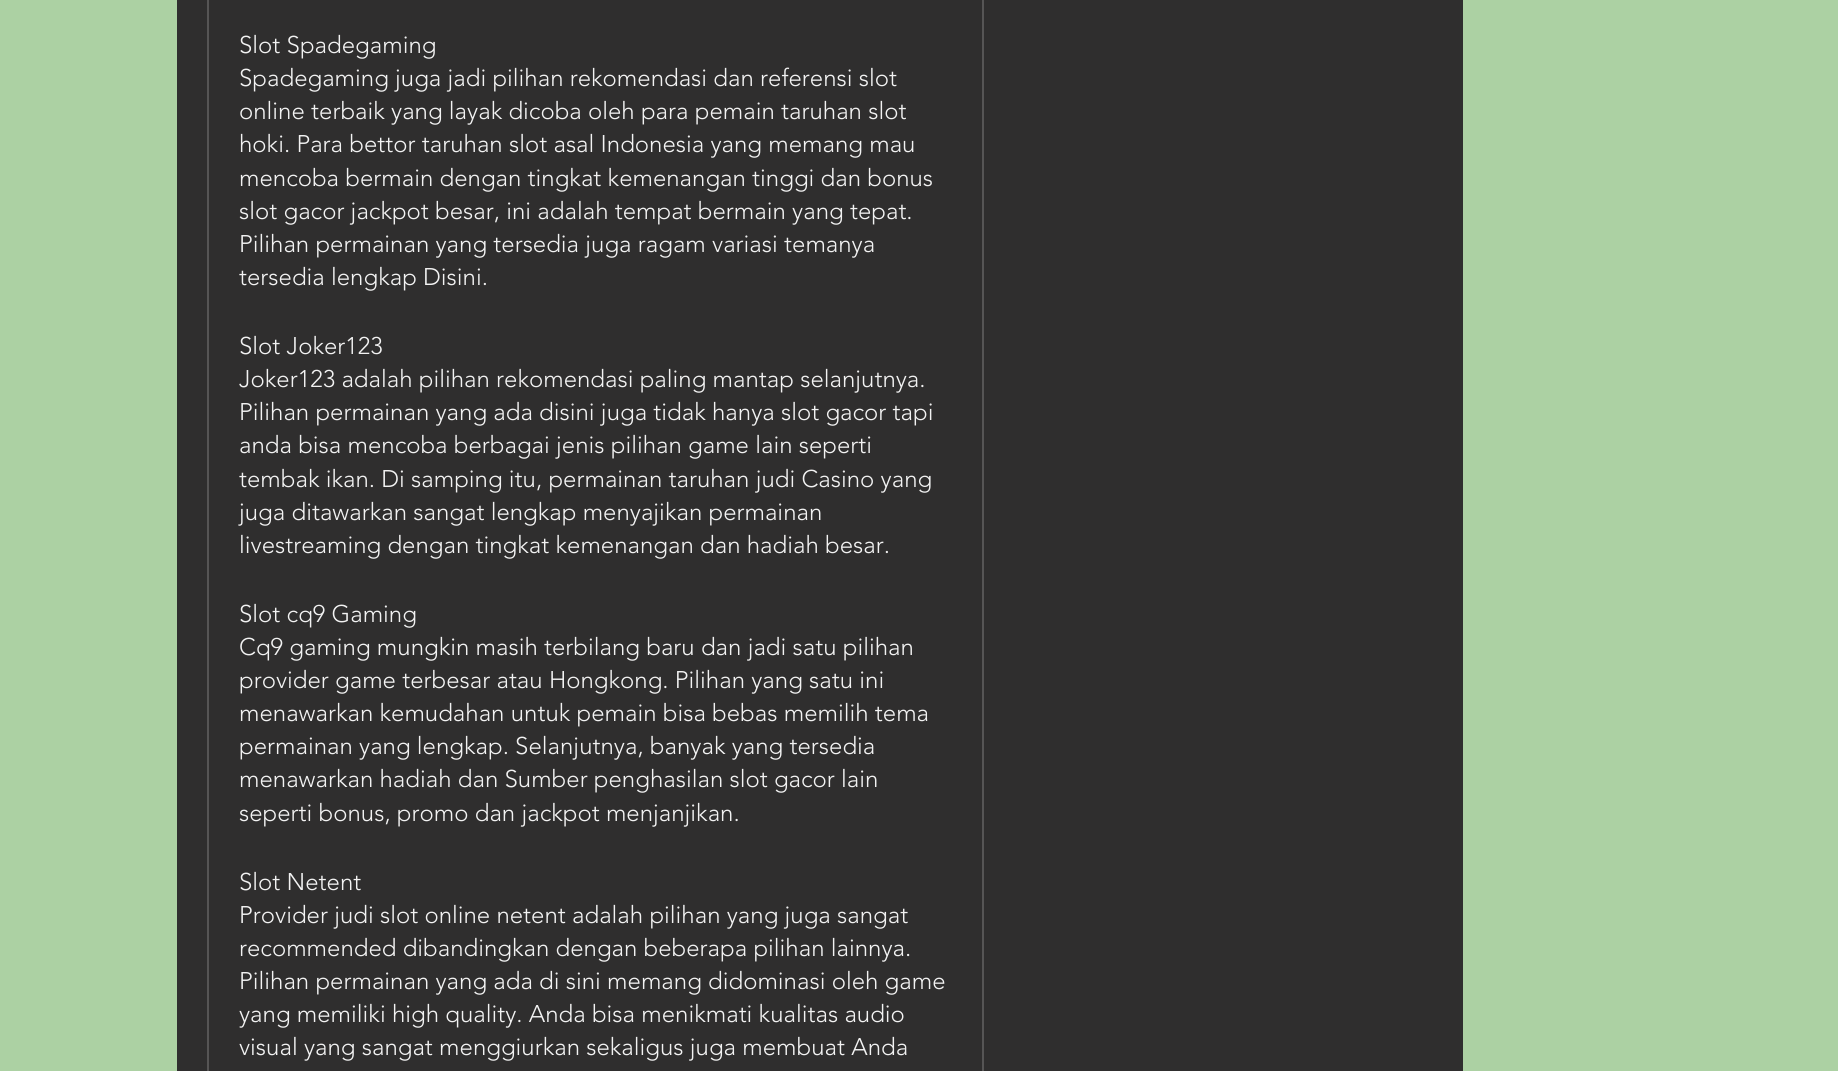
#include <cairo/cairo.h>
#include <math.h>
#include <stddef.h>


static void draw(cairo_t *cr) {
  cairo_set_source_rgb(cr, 172 / 255.0, 209 / 255.0, 163 / 255.0);
  cairo_paint(cr);
  cairo_set_source_rgb(cr, 47 / 255.0, 46 / 255.0, 46 / 255.0);
  cairo_rectangle(cr, 177, 0, 1286, 1071);
  cairo_fill(cr);
  cairo_rectangle(cr, 208, -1, 775, 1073);
  cairo_set_source_rgb(cr, 86 / 255.0, 85 / 255.0, 85 / 255.0);
  cairo_stroke(cr);
  cairo_select_font_face(cr, "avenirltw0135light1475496 Light", CAIRO_FONT_SLANT_NORMAL, CAIRO_FONT_WEIGHT_NORMAL);
  cairo_set_font_size(cr, 24);
  cairo_set_source_rgb(cr, 242 / 255.0, 242 / 255.0, 242 / 255.0);
  cairo_move_to(cr, 239, 53);
  cairo_show_text(cr, "Slot Spadegaming");
  cairo_move_to(cr, 239, 86);
  cairo_show_text(cr, "Spadegaming juga jadi pilihan rekomendasi dan referensi slot");
  cairo_move_to(cr, 239, 119);
  cairo_show_text(cr, "online terbaik yang layak dicoba oleh para pemain taruhan slot");
  cairo_move_to(cr, 239, 152);
  cairo_show_text(cr, "hoki. Para bettor taruhan slot asal Indonesia yang memang mau");
  cairo_move_to(cr, 239, 186);
  cairo_show_text(cr, "mencoba bermain dengan tingkat kemenangan tinggi dan bonus");
  cairo_move_to(cr, 239, 219);
  cairo_show_text(cr, "slot gacor jackpot besar, ini adalah tempat bermain yang tepat.");
  cairo_move_to(cr, 239, 252);
  cairo_show_text(cr, "Pilihan permainan yang tersedia juga ragam variasi temanya");
  cairo_move_to(cr, 239, 285);
  cairo_show_text(cr, "tersedia lengkap Disini.");
  cairo_move_to(cr, 239, 354);
  cairo_show_text(cr, "Slot Joker123");
  cairo_move_to(cr, 239, 387);
  cairo_show_text(cr, "Joker123 adalah pilihan rekomendasi paling mantap selanjutnya.");
  cairo_move_to(cr, 239, 420);
  cairo_show_text(cr, "Pilihan permainan yang ada disini juga tidak hanya slot gacor tapi");
  cairo_move_to(cr, 239, 453);
  cairo_show_text(cr, "anda bisa mencoba berbagai jenis pilihan game lain seperti");
  cairo_move_to(cr, 239, 487);
  cairo_show_text(cr, "tembak ikan. Di samping itu, permainan taruhan judi Casino yang");
  cairo_move_to(cr, 239, 520);
  cairo_show_text(cr, "juga ditawarkan sangat lengkap menyajikan permainan");
  cairo_move_to(cr, 239, 553);
  cairo_show_text(cr, "livestreaming dengan tingkat kemenangan dan hadiah besar.");
  cairo_move_to(cr, 239, 622);
  cairo_show_text(cr, "Slot cq9 Gaming");
  cairo_move_to(cr, 239, 655);
  cairo_show_text(cr, "Cq9 gaming mungkin masih terbilang baru dan jadi satu pilihan");
  cairo_move_to(cr, 239, 688);
  cairo_show_text(cr, "provider game terbesar atau Hongkong. Pilihan yang satu ini");
  cairo_move_to(cr, 239, 721);
  cairo_show_text(cr, "menawarkan kemudahan untuk pemain bisa bebas memilih tema");
  cairo_move_to(cr, 239, 754);
  cairo_show_text(cr, "permainan yang lengkap. Selanjutnya, banyak yang tersedia");
  cairo_move_to(cr, 239, 787);
  cairo_show_text(cr, "menawarkan hadiah dan Sumber penghasilan slot gacor lain");
  cairo_move_to(cr, 239, 821);
  cairo_show_text(cr, "seperti bonus, promo dan jackpot menjanjikan.");
  cairo_move_to(cr, 239, 890);
  cairo_show_text(cr, "Slot Netent");
  cairo_move_to(cr, 239, 923);
  cairo_show_text(cr, "Provider judi slot online netent adalah pilihan yang juga sangat");
  cairo_move_to(cr, 239, 956);
  cairo_show_text(cr, "recommended dibandingkan dengan beberapa pilihan lainnya.");
  cairo_move_to(cr, 239, 989);
  cairo_show_text(cr, "Pilihan permainan yang ada di sini memang didominasi oleh game");
  cairo_move_to(cr, 239, 1022);
  cairo_show_text(cr, "yang memiliki high quality. Anda bisa menikmati kualitas audio");
  cairo_move_to(cr, 239, 1055);
  cairo_show_text(cr, "visual yang sangat menggiurkan sekaligus juga membuat Anda");
}

int main(void) {
  cairo_surface_t *surface = cairo_image_surface_create(CAIRO_FORMAT_RGB24, 1838, 1071);
  cairo_t *cr = cairo_create(surface);
  cairo_font_options_t *options = cairo_font_options_create();
  cairo_font_options_set_hint_metrics(options, CAIRO_HINT_METRICS_OFF);
  cairo_font_options_set_hint_style(options, CAIRO_HINT_STYLE_NONE);
  cairo_set_font_options(cr, options);
  cairo_set_miter_limit(cr, 4);
  draw(cr);
  cairo_surface_write_to_png(surface, "out.png");
  cairo_font_options_destroy(options);
  cairo_destroy(cr);
  cairo_surface_destroy(surface);
  return 0;
}
